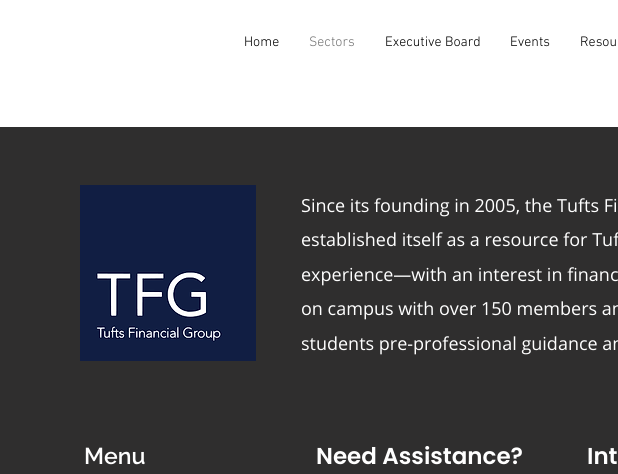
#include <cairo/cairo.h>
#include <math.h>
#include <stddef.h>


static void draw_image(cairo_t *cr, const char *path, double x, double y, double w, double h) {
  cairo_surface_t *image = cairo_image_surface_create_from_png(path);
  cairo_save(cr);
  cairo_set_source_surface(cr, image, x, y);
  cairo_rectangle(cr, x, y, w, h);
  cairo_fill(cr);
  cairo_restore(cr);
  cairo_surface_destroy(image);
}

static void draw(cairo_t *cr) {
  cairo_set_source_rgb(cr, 1, 1, 1);
  cairo_paint(cr);
  cairo_set_source_rgb(cr, 47 / 255.0, 46 / 255.0, 46 / 255.0);
  cairo_rectangle(cr, 0, 127, 618, 347);
  cairo_fill(cr);
  draw_image(cr, "images/1.png", 80, 185, 176, 176);
  cairo_select_font_face(cr, "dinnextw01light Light", CAIRO_FONT_SLANT_NORMAL, CAIRO_FONT_WEIGHT_NORMAL);
  cairo_set_font_size(cr, 14);
  cairo_set_source_rgb(cr, 0, 0, 0);
  cairo_move_to(cr, 244, 46);
  cairo_show_text(cr, "Home");
  cairo_set_source_rgb(cr, 117 / 255.0, 117 / 255.0, 117 / 255.0);
  cairo_move_to(cr, 309, 46);
  cairo_show_text(cr, "Sectors");
  cairo_set_source_rgb(cr, 0, 0, 0);
  cairo_move_to(cr, 385, 46);
  cairo_show_text(cr, "Executive Board");
  cairo_move_to(cr, 510, 46);
  cairo_show_text(cr, "Events");
  cairo_move_to(cr, 580, 46);
  cairo_show_text(cr, "Resou");
  cairo_select_font_face(cr, "Open Sans", CAIRO_FONT_SLANT_NORMAL, CAIRO_FONT_WEIGHT_NORMAL);
  cairo_set_font_size(cr, 18);
  cairo_set_source_rgb(cr, 1, 1, 1);
  cairo_move_to(cr, 301, 212);
  cairo_show_text(cr, "Since its founding in 2005, the Tufts Fi");
  cairo_move_to(cr, 301, 246);
  cairo_show_text(cr, "established itself as a resource for Tuf");
  cairo_move_to(cr, 301, 281);
  cairo_show_text(cr, "experience—with an interest in financ");
  cairo_move_to(cr, 301, 315);
  cairo_show_text(cr, "on campus with over 150 members an");
  cairo_move_to(cr, 301, 350);
  cairo_show_text(cr, "students pre-professional guidance an");
  cairo_select_font_face(cr, "Raleway SemiBold", CAIRO_FONT_SLANT_NORMAL, CAIRO_FONT_WEIGHT_NORMAL);
  cairo_set_font_size(cr, 23);
  cairo_move_to(cr, 84, 464);
  cairo_show_text(cr, "Menu");
  cairo_select_font_face(cr, "Poppins SemiBold", CAIRO_FONT_SLANT_NORMAL, CAIRO_FONT_WEIGHT_NORMAL);
  cairo_move_to(cr, 316, 464);
  cairo_show_text(cr, "Need Assistance?");
  cairo_move_to(cr, 587, 464);
  cairo_show_text(cr, "Int");
}

int main(void) {
  cairo_surface_t *surface = cairo_image_surface_create(CAIRO_FORMAT_RGB24, 618, 474);
  cairo_t *cr = cairo_create(surface);
  cairo_font_options_t *options = cairo_font_options_create();
  cairo_font_options_set_hint_metrics(options, CAIRO_HINT_METRICS_OFF);
  cairo_font_options_set_hint_style(options, CAIRO_HINT_STYLE_NONE);
  cairo_set_font_options(cr, options);
  cairo_set_miter_limit(cr, 4);
  draw(cr);
  cairo_surface_write_to_png(surface, "out.png");
  cairo_font_options_destroy(options);
  cairo_destroy(cr);
  cairo_surface_destroy(surface);
  return 0;
}
